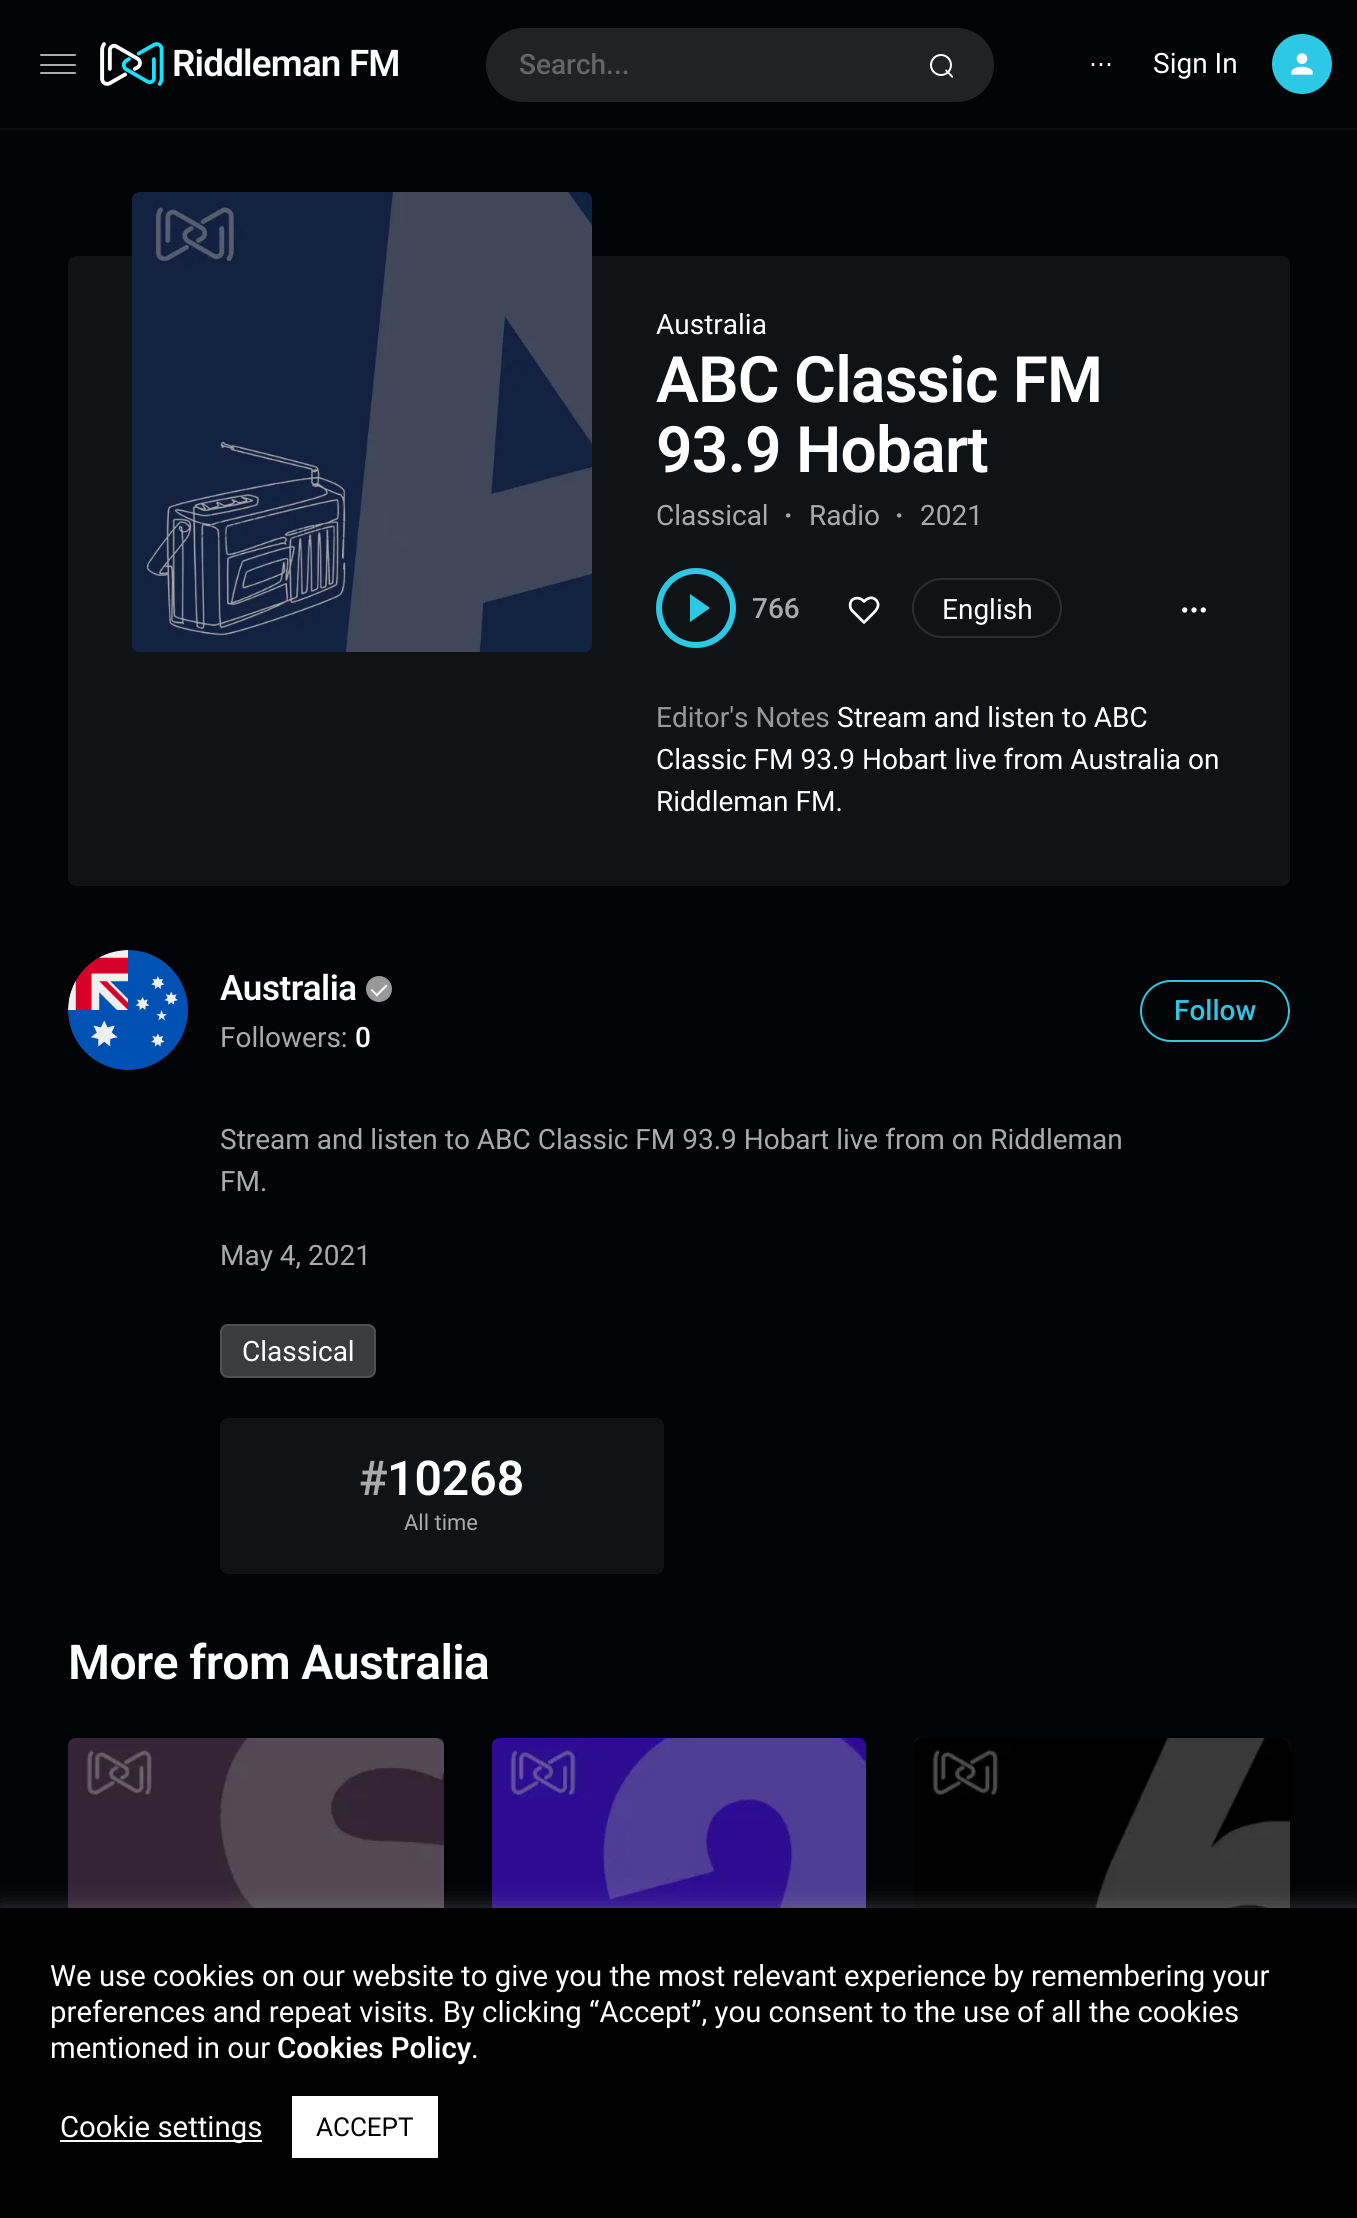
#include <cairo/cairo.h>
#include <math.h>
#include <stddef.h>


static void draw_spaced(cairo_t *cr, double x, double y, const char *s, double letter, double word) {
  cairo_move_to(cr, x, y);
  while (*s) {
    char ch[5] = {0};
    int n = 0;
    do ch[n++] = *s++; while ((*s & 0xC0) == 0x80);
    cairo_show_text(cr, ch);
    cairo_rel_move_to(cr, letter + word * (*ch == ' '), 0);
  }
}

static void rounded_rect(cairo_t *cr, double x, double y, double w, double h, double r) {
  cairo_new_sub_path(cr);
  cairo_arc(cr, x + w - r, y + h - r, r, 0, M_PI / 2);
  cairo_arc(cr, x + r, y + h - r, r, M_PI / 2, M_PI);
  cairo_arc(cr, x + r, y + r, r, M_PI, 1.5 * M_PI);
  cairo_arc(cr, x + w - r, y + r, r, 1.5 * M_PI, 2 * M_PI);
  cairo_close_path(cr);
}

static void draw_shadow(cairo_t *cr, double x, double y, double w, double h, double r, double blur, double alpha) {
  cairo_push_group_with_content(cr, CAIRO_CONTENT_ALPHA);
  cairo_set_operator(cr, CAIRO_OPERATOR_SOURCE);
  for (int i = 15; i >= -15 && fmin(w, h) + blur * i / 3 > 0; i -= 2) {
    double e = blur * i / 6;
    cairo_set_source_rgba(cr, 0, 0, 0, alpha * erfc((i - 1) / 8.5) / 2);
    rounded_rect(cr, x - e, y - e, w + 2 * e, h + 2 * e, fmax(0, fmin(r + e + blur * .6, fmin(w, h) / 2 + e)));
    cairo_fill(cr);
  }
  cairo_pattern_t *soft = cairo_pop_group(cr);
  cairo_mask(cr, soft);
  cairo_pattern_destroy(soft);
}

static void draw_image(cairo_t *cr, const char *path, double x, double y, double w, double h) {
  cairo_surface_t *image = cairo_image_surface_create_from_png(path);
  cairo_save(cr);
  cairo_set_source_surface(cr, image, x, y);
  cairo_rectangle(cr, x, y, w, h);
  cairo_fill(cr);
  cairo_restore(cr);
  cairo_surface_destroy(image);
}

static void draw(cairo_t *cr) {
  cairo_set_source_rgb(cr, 1 / 255.0, 3 / 255.0, 5 / 255.0);
  cairo_paint(cr);
  cairo_save(cr);
  cairo_rectangle(cr, 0, 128, 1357, 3);
  cairo_clip(cr);
  cairo_set_source_rgb(cr, 130 / 255.0, 140 / 255.0, 150 / 255.0);
  draw_shadow(cr, 0, 2, 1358, 128, 0, 1, 0.1);
  cairo_restore(cr);
  cairo_set_source_rgb(cr, 170 / 255.0, 170 / 255.0, 170 / 255.0);
  rounded_rect(cr, 40, 64, 36, 2, 1);
  cairo_fill(cr);
  rounded_rect(cr, 40, 54, 36, 2, 1);
  cairo_fill(cr);
  rounded_rect(cr, 40, 72, 36, 2, 1);
  cairo_fill(cr);
  draw_image(cr, "images/1.png", 100, 42, 64, 44);
  cairo_set_source_rgb(cr, 32 / 255.0, 35 / 255.0, 38 / 255.0);
  rounded_rect(cr, 486, 28, 508, 74, 37);
  cairo_fill(cr);
  cairo_arc(cr, 941, 65, 10, 0, 2 * M_PI);
  cairo_set_source_rgb(cr, 1, 1, 1);
  cairo_stroke(cr);
  cairo_new_path(cr);
  cairo_move_to(cr, 947, 70);
  cairo_line_to(cr, 952, 75);
  cairo_curve_to(cr, 954, 77.5, 953, 79, 950.5, 76.5);
  cairo_line_to(cr, 945.5, 71);
  cairo_curve_to(cr, 944.5, 70, 946, 69, 947, 70);
  cairo_close_path(cr);
  cairo_fill(cr);
  cairo_set_source_rgb(cr, 44 / 255.0, 200 / 255.0, 229 / 255.0);
  cairo_arc(cr, 1302, 64, 30, 0, 2 * M_PI);
  cairo_fill(cr);
  draw_image(cr, "images/2.png", 1291, 53, 22, 22);
  cairo_set_source_rgb(cr, 16 / 255.0, 19 / 255.0, 22 / 255.0);
  rounded_rect(cr, 68, 256, 1222, 630, 8);
  cairo_fill(cr);
  cairo_set_source_rgba(cr, 110 / 255.0, 120 / 255.0, 130 / 255.0, 0.2);
  rounded_rect(cr, 132, 192, 460, 460, 8);
  cairo_fill(cr);
  draw_image(cr, "images/3.png", 132, 192, 460, 460);
  cairo_set_source_rgb(cr, 44 / 255.0, 200 / 255.0, 229 / 255.0);
  cairo_new_path(cr);
  cairo_move_to(cr, 690, 622);
  cairo_line_to(cr, 690, 594);
  cairo_line_to(cr, 710, 608);
  cairo_close_path(cr);
  cairo_fill(cr);
  cairo_arc(cr, 696, 608, 37, 0, 2 * M_PI);
  cairo_set_line_width(cr, 6);
  cairo_stroke(cr);
  cairo_new_path(cr);
  cairo_move_to(cr, 876, 600);
  cairo_curve_to(cr, 872, 596, 867.5, 598, 864, 601.5);
  cairo_line_to(cr, 862.5, 600);
  cairo_curve_to(cr, 859.5, 597.5, 855, 597.5, 852, 600);
  cairo_curve_to(cr, 849.5, 603, 849.5, 607.5, 852, 610.5);
  cairo_line_to(cr, 864, 622.5);
  cairo_line_to(cr, 871, 615.5);
  cairo_curve_to(cr, 875, 611.5, 881.5, 606, 876, 600);
  cairo_close_path(cr);
  cairo_set_source_rgb(cr, 1, 1, 1);
  cairo_set_line_width(cr, 2.7);
  cairo_set_line_cap(cr, CAIRO_LINE_CAP_ROUND);
  cairo_set_line_join(cr, CAIRO_LINE_JOIN_ROUND);
  cairo_stroke(cr);
  rounded_rect(cr, 913, 579, 148, 58, 29);
  cairo_set_source_rgb(cr, 43 / 255.0, 45 / 255.0, 48 / 255.0);
  cairo_set_line_width(cr, 2);
  cairo_set_line_cap(cr, CAIRO_LINE_CAP_BUTT);
  cairo_set_line_join(cr, CAIRO_LINE_JOIN_MITER);
  cairo_stroke(cr);
  cairo_arc(cr, 1184.7, 610, 1.3, 0, 2 * M_PI);
  cairo_set_source_rgb(cr, 1, 1, 1);
  cairo_set_line_width(cr, 2.7);
  cairo_stroke(cr);
  cairo_arc(cr, 1194, 610, 1.3, 0, 2 * M_PI);
  cairo_stroke(cr);
  cairo_arc(cr, 1203.3, 610, 1.3, 0, 2 * M_PI);
  cairo_stroke(cr);
  cairo_set_source_rgb(cr, 32 / 255.0, 35 / 255.0, 38 / 255.0);
  cairo_arc(cr, 128, 1010, 60, 0, 2 * M_PI);
  cairo_fill(cr);
  draw_image(cr, "images/4.png", 68, 950, 120, 120);
  cairo_set_source_rgb(cr, 153 / 255.0, 153 / 255.0, 153 / 255.0);
  cairo_arc(cr, 379, 989, 13, 0, 2 * M_PI);
  cairo_fill(cr);
  cairo_set_source_rgb(cr, 1, 1, 1);
  cairo_new_path(cr);
  cairo_move_to(cr, 375.5, 995);
  cairo_line_to(cr, 386, 984.5);
  cairo_line_to(cr, 387.5, 986);
  cairo_line_to(cr, 377, 996.5);
  cairo_close_path(cr);
  cairo_fill(cr);
  cairo_new_path(cr);
  cairo_move_to(cr, 370.5, 990);
  cairo_line_to(cr, 372, 989);
  cairo_line_to(cr, 378, 995);
  cairo_line_to(cr, 377, 996.5);
  cairo_close_path(cr);
  cairo_fill(cr);
  rounded_rect(cr, 1141, 981, 148, 60, 30);
  cairo_set_source_rgb(cr, 44 / 255.0, 200 / 255.0, 229 / 255.0);
  cairo_set_line_width(cr, 2);
  cairo_stroke(cr);
  cairo_set_source_rgb(cr, 58 / 255.0, 60 / 255.0, 62 / 255.0);
  rounded_rect(cr, 220, 1324, 156, 54, 8);
  cairo_fill(cr);
  rounded_rect(cr, 221, 1325, 154, 52, 7);
  cairo_set_source_rgba(cr, 150 / 255.0, 170 / 255.0, 170 / 255.0, 0.2);
  cairo_stroke(cr);
  cairo_set_source_rgb(cr, 16 / 255.0, 19 / 255.0, 22 / 255.0);
  rounded_rect(cr, 220, 1418, 444, 156, 8);
  cairo_fill(cr);
  cairo_set_source_rgb(cr, 13 / 255.0, 16 / 255.0, 19 / 255.0);
  cairo_new_path(cr);
  cairo_move_to(cr, 436, 1738);
  cairo_curve_to(cr, 440.5, 1738, 444, 1741.5, 444, 1746);
  cairo_curve_to(cr, 444, 1743, 443.5, 1740, 441.5, 1738);
  cairo_close_path(cr);
  cairo_fill(cr);
  cairo_set_source_rgb(cr, 16 / 255.0, 19 / 255.0, 22 / 255.0);
  rounded_rect(cr, 68, 1738, 376, 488, 8);
  cairo_fill(cr);
  cairo_set_source_rgba(cr, 110 / 255.0, 120 / 255.0, 130 / 255.0, 0.2);
  cairo_new_path(cr);
  cairo_move_to(cr, 76, 1738);
  cairo_line_to(cr, 436, 1738);
  cairo_curve_to(cr, 440.5, 1738, 444, 1741.5, 444, 1746);
  cairo_line_to(cr, 444, 2114);
  cairo_line_to(cr, 68, 2114);
  cairo_line_to(cr, 68, 1746);
  cairo_curve_to(cr, 68, 1741.5, 71.5, 1738, 76, 1738);
  cairo_close_path(cr);
  cairo_fill(cr);
  draw_image(cr, "images/5.png", 68, 1738, 376, 170);
  cairo_set_source_rgb(cr, 13 / 255.0, 16 / 255.0, 19 / 255.0);
  cairo_set_fill_rule(cr, CAIRO_FILL_RULE_EVEN_ODD);
  cairo_new_path(cr);
  cairo_move_to(cr, 863, 1738);
  cairo_line_to(cr, 858, 1738);
  cairo_curve_to(cr, 862, 1738, 866, 1742, 866, 1746);
  cairo_curve_to(cr, 866, 1743, 866, 1740, 863, 1738);
  cairo_close_path(cr);
  cairo_move_to(cr, 500, 1738);
  cairo_curve_to(cr, 496, 1738, 492, 1742, 492, 1746);
  cairo_curve_to(cr, 492, 1743, 492, 1740, 495, 1738);
  cairo_close_path(cr);
  cairo_fill(cr);
  draw_image(cr, "images/6.png", 492, 1738, 374, 170);
  cairo_set_fill_rule(cr, CAIRO_FILL_RULE_WINDING);
  cairo_new_path(cr);
  cairo_move_to(cr, 922, 1738);
  cairo_curve_to(cr, 917.5, 1738, 914, 1741.5, 914, 1746);
  cairo_curve_to(cr, 914, 1743, 914.5, 1740, 916.5, 1738);
  cairo_close_path(cr);
  cairo_fill(cr);
  cairo_set_source_rgb(cr, 16 / 255.0, 19 / 255.0, 22 / 255.0);
  rounded_rect(cr, 914, 1738, 376, 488, 8);
  cairo_fill(cr);
  cairo_set_source_rgba(cr, 110 / 255.0, 120 / 255.0, 130 / 255.0, 0.2);
  cairo_new_path(cr);
  cairo_move_to(cr, 922, 1738);
  cairo_line_to(cr, 1282, 1738);
  cairo_curve_to(cr, 1286.5, 1738, 1290, 1741.5, 1290, 1746);
  cairo_line_to(cr, 1290, 2114);
  cairo_line_to(cr, 914, 2114);
  cairo_line_to(cr, 914, 1746);
  cairo_curve_to(cr, 914, 1741.5, 917.5, 1738, 922, 1738);
  cairo_close_path(cr);
  cairo_fill(cr);
  draw_image(cr, "images/7.png", 914, 1738, 376, 170);
  cairo_set_source_rgb(cr, 172 / 255.0, 171 / 255.0, 171 / 255.0);
  draw_shadow(cr, 0, 1906, 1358, 310, 0, 10, 0.3);
  cairo_set_source_rgb(cr, 0, 0, 0);
  cairo_rectangle(cr, 0, 1908, 1357, 310);
  cairo_fill(cr);
  cairo_set_source_rgb(cr, 1, 1, 1);
  cairo_rectangle(cr, 60, 2140, 202, 2);
  cairo_fill(cr);
  cairo_rectangle(cr, 292, 2096, 146, 62);
  cairo_fill(cr);
  cairo_select_font_face(cr, "Roboto SemiBold", CAIRO_FONT_SLANT_NORMAL, CAIRO_FONT_WEIGHT_NORMAL);
  cairo_set_font_size(cr, 36.75);
  draw_spaced(cr, 172, 76, "Riddleman FM", -0.8, 0);
  cairo_select_font_face(cr, "Roboto Medium", CAIRO_FONT_SLANT_NORMAL, CAIRO_FONT_WEIGHT_NORMAL);
  cairo_set_font_size(cr, 28);
  cairo_set_source_rgb(cr, 99 / 255.0, 101 / 255.0, 103 / 255.0);
  cairo_move_to(cr, 519, 74);
  cairo_show_text(cr, "Search...");
  cairo_select_font_face(cr, "DejaVu Sans", CAIRO_FONT_SLANT_NORMAL, CAIRO_FONT_WEIGHT_NORMAL);
  cairo_set_font_size(cr, 24);
  cairo_set_source_rgb(cr, 1, 1, 1);
  cairo_move_to(cr, 1089, 72);
  cairo_show_text(cr, "⋯");
  cairo_select_font_face(cr, "Roboto", CAIRO_FONT_SLANT_NORMAL, CAIRO_FONT_WEIGHT_NORMAL);
  cairo_set_font_size(cr, 28);
  cairo_move_to(cr, 1153, 73);
  cairo_show_text(cr, "Sign In");
  cairo_move_to(cr, 656, 334);
  cairo_show_text(cr, "Australia");
  cairo_select_font_face(cr, "Roboto SemiBold", CAIRO_FONT_SLANT_NORMAL, CAIRO_FONT_WEIGHT_NORMAL);
  cairo_set_font_size(cr, 64);
  draw_spaced(cr, 656, 402, "ABC Classic FM", -0.75, 0);
  draw_spaced(cr, 656, 472, "93.9 Hobart", -0.75, 0);
  cairo_select_font_face(cr, "Roboto", CAIRO_FONT_SLANT_NORMAL, CAIRO_FONT_WEIGHT_NORMAL);
  cairo_set_font_size(cr, 28);
  cairo_set_source_rgb(cr, 170 / 255.0, 170 / 255.0, 170 / 255.0);
  cairo_move_to(cr, 656, 525);
  cairo_show_text(cr, "Classical");
  cairo_select_font_face(cr, "Roboto", CAIRO_FONT_SLANT_NORMAL, CAIRO_FONT_WEIGHT_BOLD);
  cairo_move_to(cr, 784, 525);
  cairo_show_text(cr, "·");
  cairo_select_font_face(cr, "Roboto", CAIRO_FONT_SLANT_NORMAL, CAIRO_FONT_WEIGHT_NORMAL);
  cairo_move_to(cr, 809, 525);
  cairo_show_text(cr, "Radio");
  cairo_select_font_face(cr, "Roboto", CAIRO_FONT_SLANT_NORMAL, CAIRO_FONT_WEIGHT_BOLD);
  cairo_move_to(cr, 895, 525);
  cairo_show_text(cr, "·");
  cairo_select_font_face(cr, "Roboto", CAIRO_FONT_SLANT_NORMAL, CAIRO_FONT_WEIGHT_NORMAL);
  cairo_move_to(cr, 920, 525);
  cairo_show_text(cr, "2021");
  cairo_select_font_face(cr, "Roboto Medium", CAIRO_FONT_SLANT_NORMAL, CAIRO_FONT_WEIGHT_NORMAL);
  cairo_move_to(cr, 752, 618);
  cairo_show_text(cr, "766");
  cairo_select_font_face(cr, "Roboto", CAIRO_FONT_SLANT_NORMAL, CAIRO_FONT_WEIGHT_NORMAL);
  cairo_set_source_rgb(cr, 1, 1, 1);
  cairo_move_to(cr, 942, 619);
  cairo_show_text(cr, "English");
  cairo_set_source_rgb(cr, 153 / 255.0, 153 / 255.0, 153 / 255.0);
  cairo_move_to(cr, 656, 727);
  cairo_show_text(cr, "Editor's Notes");
  cairo_set_source_rgb(cr, 1, 1, 1);
  cairo_move_to(cr, 837, 727);
  cairo_show_text(cr, "Stream and listen to ABC");
  cairo_move_to(cr, 656, 769);
  cairo_show_text(cr, "Classic FM 93.9 Hobart live from Australia on");
  cairo_move_to(cr, 656, 811);
  cairo_show_text(cr, "Riddleman FM.");
  cairo_select_font_face(cr, "Roboto SemiBold", CAIRO_FONT_SLANT_NORMAL, CAIRO_FONT_WEIGHT_NORMAL);
  cairo_set_font_size(cr, 35);
  draw_spaced(cr, 220, 1000, "Australia", -0.5, 0);
  cairo_select_font_face(cr, "Roboto", CAIRO_FONT_SLANT_NORMAL, CAIRO_FONT_WEIGHT_NORMAL);
  cairo_set_font_size(cr, 28);
  cairo_set_source_rgb(cr, 170 / 255.0, 170 / 255.0, 170 / 255.0);
  cairo_move_to(cr, 220, 1047);
  cairo_show_text(cr, "Followers:");
  cairo_select_font_face(cr, "Roboto Medium", CAIRO_FONT_SLANT_NORMAL, CAIRO_FONT_WEIGHT_NORMAL);
  cairo_set_source_rgb(cr, 1, 1, 1);
  cairo_move_to(cr, 355, 1047);
  cairo_show_text(cr, "0");
  cairo_set_source_rgb(cr, 44 / 255.0, 200 / 255.0, 229 / 255.0);
  cairo_move_to(cr, 1174, 1020);
  cairo_show_text(cr, "Follow");
  cairo_select_font_face(cr, "Roboto", CAIRO_FONT_SLANT_NORMAL, CAIRO_FONT_WEIGHT_NORMAL);
  cairo_set_source_rgb(cr, 170 / 255.0, 170 / 255.0, 170 / 255.0);
  cairo_move_to(cr, 220, 1149);
  cairo_show_text(cr, "Stream and listen to ABC Classic FM 93.9 Hobart live from on Riddleman");
  cairo_move_to(cr, 220, 1191);
  cairo_show_text(cr, "FM.");
  cairo_move_to(cr, 220, 1265);
  cairo_show_text(cr, "May 4, 2021");
  cairo_set_source_rgb(cr, 1, 1, 1);
  cairo_move_to(cr, 242, 1361);
  cairo_show_text(cr, "Classical");
  cairo_select_font_face(cr, "Roboto SemiBold", CAIRO_FONT_SLANT_NORMAL, CAIRO_FONT_WEIGHT_NORMAL);
  cairo_set_font_size(cr, 48);
  cairo_set_source_rgb(cr, 170 / 255.0, 170 / 255.0, 170 / 255.0);
  cairo_move_to(cr, 359, 1495);
  cairo_show_text(cr, "#");
  cairo_set_source_rgb(cr, 1, 1, 1);
  cairo_move_to(cr, 387, 1495);
  cairo_show_text(cr, "10268");
  cairo_select_font_face(cr, "Roboto", CAIRO_FONT_SLANT_NORMAL, CAIRO_FONT_WEIGHT_NORMAL);
  cairo_set_font_size(cr, 22);
  cairo_set_source_rgb(cr, 170 / 255.0, 170 / 255.0, 170 / 255.0);
  cairo_move_to(cr, 404, 1530);
  cairo_show_text(cr, "All time");
  cairo_select_font_face(cr, "Roboto SemiBold", CAIRO_FONT_SLANT_NORMAL, CAIRO_FONT_WEIGHT_NORMAL);
  cairo_set_font_size(cr, 48);
  cairo_set_source_rgb(cr, 1, 1, 1);
  draw_spaced(cr, 68, 1679, "More from Australia", -0.6, 0);
  cairo_select_font_face(cr, "Roboto", CAIRO_FONT_SLANT_NORMAL, CAIRO_FONT_WEIGHT_NORMAL);
  cairo_set_font_size(cr, 29.35);
  cairo_move_to(cr, 50, 1986);
  cairo_show_text(cr, "We use cookies on our website to give you the most relevant experience by remembering your");
  cairo_move_to(cr, 50, 2022);
  cairo_show_text(cr, "preferences and repeat visits. By clicking “Accept”, you consent to the use of all the cookies");
  cairo_move_to(cr, 50, 2058);
  cairo_show_text(cr, "mentioned in our");
  cairo_select_font_face(cr, "Roboto SemiBold", CAIRO_FONT_SLANT_NORMAL, CAIRO_FONT_WEIGHT_NORMAL);
  cairo_move_to(cr, 277, 2058);
  cairo_show_text(cr, "Cookies Policy");
  cairo_select_font_face(cr, "Roboto", CAIRO_FONT_SLANT_NORMAL, CAIRO_FONT_WEIGHT_NORMAL);
  cairo_move_to(cr, 471, 2058);
  cairo_show_text(cr, ".");
  cairo_move_to(cr, 60, 2137);
  cairo_show_text(cr, "Cookie settings");
  cairo_set_font_size(cr, 26);
  cairo_set_source_rgb(cr, 0, 0, 0);
  cairo_move_to(cr, 316, 2136);
  cairo_show_text(cr, "ACCEPT");
}

int main(void) {
  cairo_surface_t *surface = cairo_image_surface_create(CAIRO_FORMAT_RGB24, 1357, 2218);
  cairo_t *cr = cairo_create(surface);
  cairo_font_options_t *options = cairo_font_options_create();
  cairo_font_options_set_hint_metrics(options, CAIRO_HINT_METRICS_OFF);
  cairo_font_options_set_hint_style(options, CAIRO_HINT_STYLE_NONE);
  cairo_set_font_options(cr, options);
  cairo_set_miter_limit(cr, 4);
  draw(cr);
  cairo_surface_write_to_png(surface, "out.png");
  cairo_font_options_destroy(options);
  cairo_destroy(cr);
  cairo_surface_destroy(surface);
  return 0;
}
